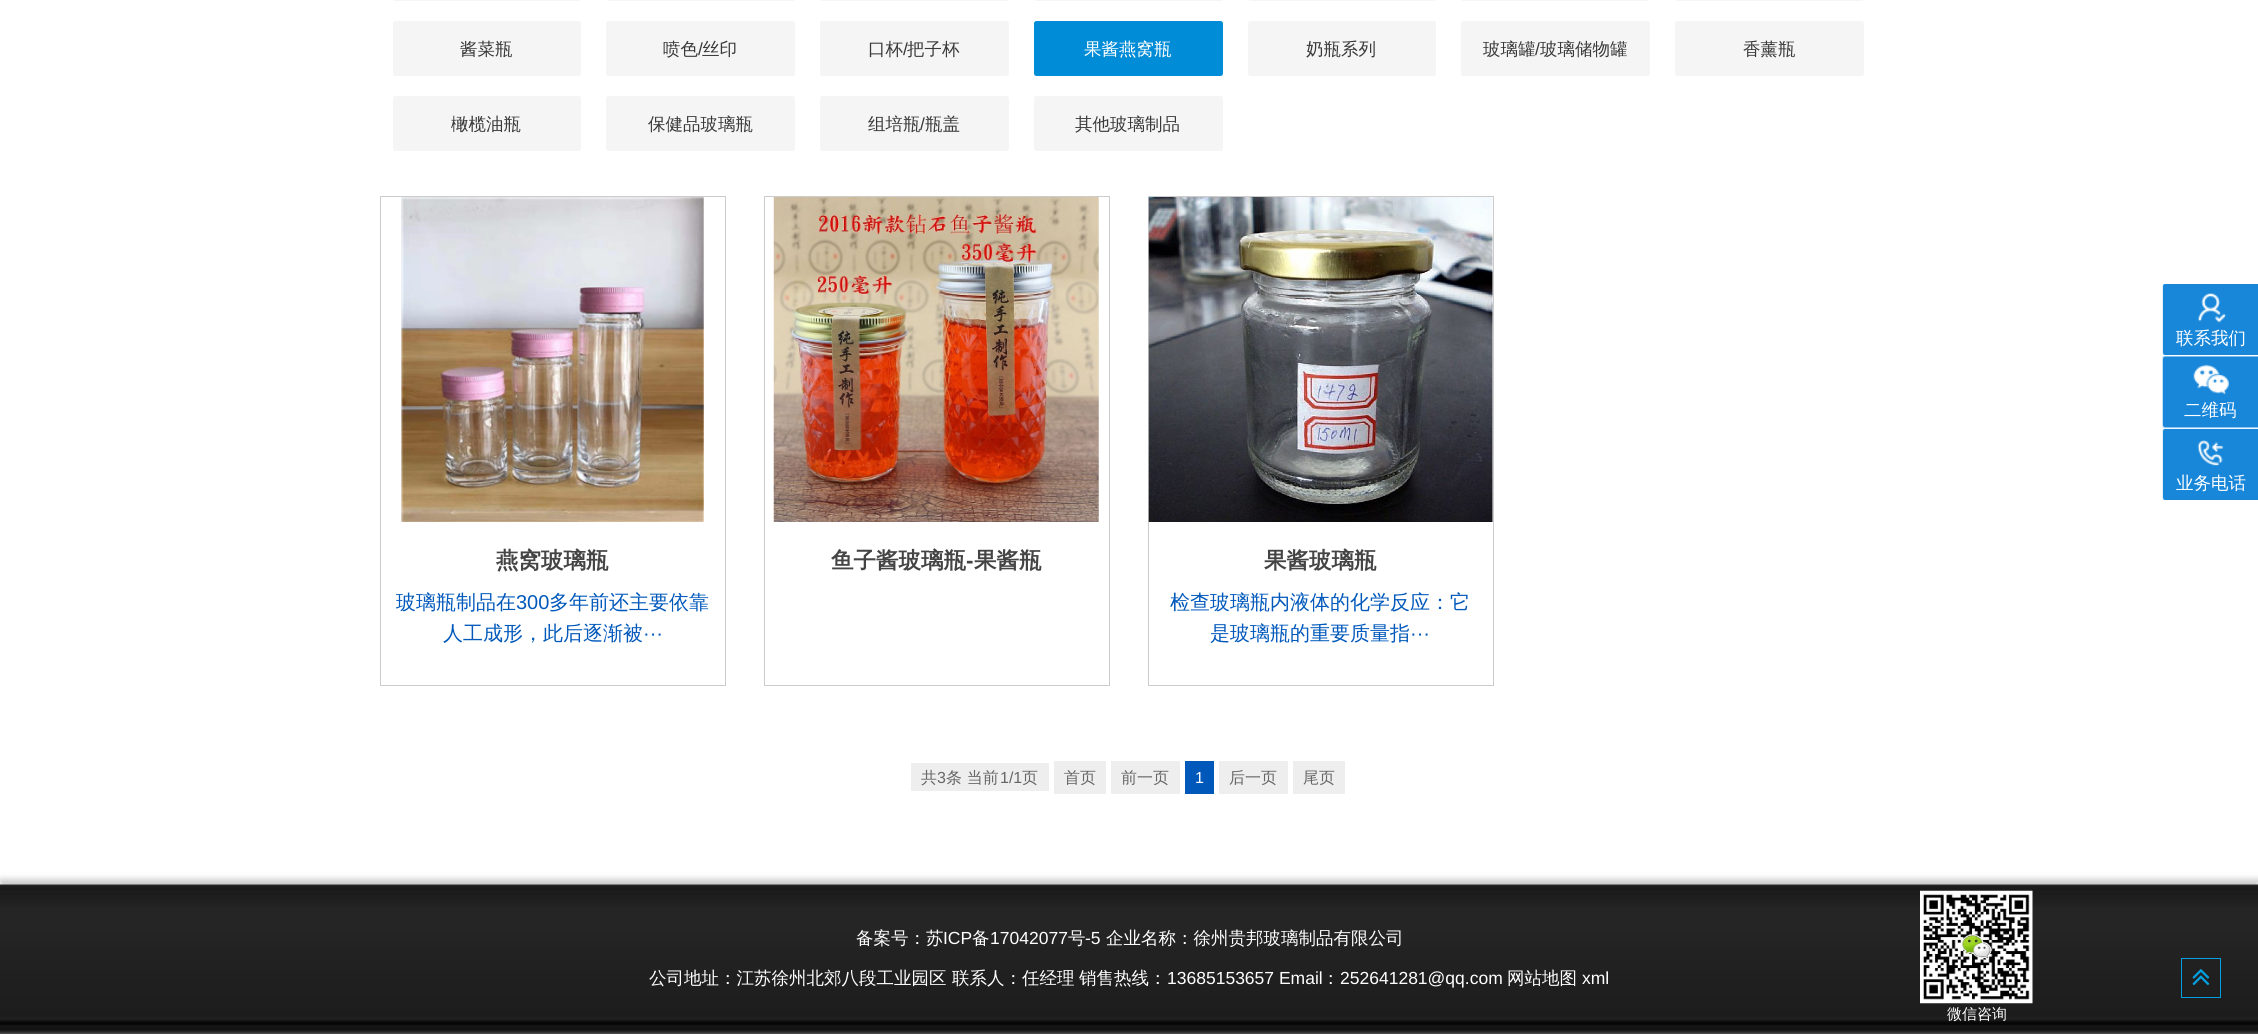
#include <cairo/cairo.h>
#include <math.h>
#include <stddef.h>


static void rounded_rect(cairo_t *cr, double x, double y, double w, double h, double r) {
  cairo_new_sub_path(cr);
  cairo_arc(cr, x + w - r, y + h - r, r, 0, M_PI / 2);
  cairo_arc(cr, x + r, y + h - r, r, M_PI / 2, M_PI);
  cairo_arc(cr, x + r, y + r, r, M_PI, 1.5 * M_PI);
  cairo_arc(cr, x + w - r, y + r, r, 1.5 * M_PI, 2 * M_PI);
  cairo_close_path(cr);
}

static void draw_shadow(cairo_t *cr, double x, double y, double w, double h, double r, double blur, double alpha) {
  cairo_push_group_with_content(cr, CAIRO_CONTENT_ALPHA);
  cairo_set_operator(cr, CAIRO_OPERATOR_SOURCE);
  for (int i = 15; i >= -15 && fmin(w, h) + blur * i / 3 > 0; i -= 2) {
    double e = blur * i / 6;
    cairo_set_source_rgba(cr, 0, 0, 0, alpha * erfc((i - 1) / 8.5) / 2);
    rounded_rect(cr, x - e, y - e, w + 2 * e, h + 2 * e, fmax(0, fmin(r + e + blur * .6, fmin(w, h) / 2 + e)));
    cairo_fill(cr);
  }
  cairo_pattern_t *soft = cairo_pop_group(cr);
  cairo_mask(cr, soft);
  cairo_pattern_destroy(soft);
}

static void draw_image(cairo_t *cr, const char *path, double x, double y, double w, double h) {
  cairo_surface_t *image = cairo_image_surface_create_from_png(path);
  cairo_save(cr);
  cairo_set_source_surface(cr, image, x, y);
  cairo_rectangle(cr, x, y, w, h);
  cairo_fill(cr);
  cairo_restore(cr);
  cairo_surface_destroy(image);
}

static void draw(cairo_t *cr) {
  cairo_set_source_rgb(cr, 1, 1, 1);
  cairo_paint(cr);
  cairo_set_source_rgb(cr, 245 / 255.0, 245 / 255.0, 245 / 255.0);
  rounded_rect(cr, 393, -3, 188, 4, 2.5);
  cairo_fill(cr);
  rounded_rect(cr, 606, -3, 189, 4, 2.5);
  cairo_fill(cr);
  rounded_rect(cr, 820, -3, 189, 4, 2.5);
  cairo_fill(cr);
  rounded_rect(cr, 1034, -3, 189, 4, 2.5);
  cairo_fill(cr);
  rounded_rect(cr, 1248, -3, 188, 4, 2.5);
  cairo_fill(cr);
  rounded_rect(cr, 1461, -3, 189, 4, 2.5);
  cairo_fill(cr);
  rounded_rect(cr, 1675, -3, 189, 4, 2.5);
  cairo_fill(cr);
  rounded_rect(cr, 393, 21, 188, 55, 2.5);
  cairo_fill(cr);
  rounded_rect(cr, 606, 21, 189, 55, 2.5);
  cairo_fill(cr);
  rounded_rect(cr, 820, 21, 189, 55, 2.5);
  cairo_fill(cr);
  cairo_set_source_rgb(cr, 0, 140 / 255.0, 214 / 255.0);
  rounded_rect(cr, 1034, 21, 189, 55, 2.5);
  cairo_fill(cr);
  cairo_set_source_rgb(cr, 245 / 255.0, 245 / 255.0, 245 / 255.0);
  rounded_rect(cr, 1248, 21, 188, 55, 2.5);
  cairo_fill(cr);
  rounded_rect(cr, 1461, 21, 189, 55, 2.5);
  cairo_fill(cr);
  rounded_rect(cr, 1675, 21, 189, 55, 2.5);
  cairo_fill(cr);
  rounded_rect(cr, 393, 96, 188, 55, 2.5);
  cairo_fill(cr);
  rounded_rect(cr, 606, 96, 189, 55, 2.5);
  cairo_fill(cr);
  rounded_rect(cr, 820, 96, 189, 55, 2.5);
  cairo_fill(cr);
  rounded_rect(cr, 1034, 96, 189, 55, 2.5);
  cairo_fill(cr);
  cairo_rectangle(cr, 380.5, 196.5, 345, 489);
  cairo_set_source_rgb(cr, 204 / 255.0, 204 / 255.0, 204 / 255.0);
  cairo_set_line_width(cr, 1);
  cairo_stroke(cr);
  draw_image(cr, "images/1.png", 401, 197, 303, 325);
  cairo_rectangle(cr, 764.5, 196.5, 345, 489);
  cairo_stroke(cr);
  draw_image(cr, "images/2.png", 773, 197, 326, 325);
  cairo_rectangle(cr, 1148.5, 196.5, 345, 489);
  cairo_stroke(cr);
  draw_image(cr, "images/3.png", 1148, 197, 345, 325);
  cairo_set_source_rgb(cr, 238 / 255.0, 238 / 255.0, 238 / 255.0);
  cairo_rectangle(cr, 911, 763, 138, 28);
  cairo_fill(cr);
  cairo_rectangle(cr, 1054, 761, 52, 33);
  cairo_fill(cr);
  cairo_rectangle(cr, 1111, 761, 69, 33);
  cairo_fill(cr);
  cairo_set_source_rgb(cr, 0, 88 / 255.0, 187 / 255.0);
  cairo_rectangle(cr, 1185, 761, 29, 33);
  cairo_fill(cr);
  cairo_set_source_rgb(cr, 238 / 255.0, 238 / 255.0, 238 / 255.0);
  cairo_rectangle(cr, 1219, 761, 69, 33);
  cairo_fill(cr);
  cairo_rectangle(cr, 1293, 761, 52, 33);
  cairo_fill(cr);
  draw_image(cr, "images/4.png", 2162, 284, 96, 71);
  draw_image(cr, "images/5.png", 2162, 356, 96, 72);
  draw_image(cr, "images/6.png", 2162, 428, 96, 72);
  cairo_set_source_rgb(cr, 204 / 255.0, 204 / 255.0, 204 / 255.0);
  draw_shadow(cr, 0, 879, 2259, 150, 0, 3, 1);
  draw_image(cr, "images/7.png", 0, 884, 2258, 150);
  draw_image(cr, "images/8.png", 1920, 890, 113, 114);
  cairo_rectangle(cr, 2181.5, 958.5, 39, 39);
  cairo_set_source_rgba(cr, 0, 180 / 255.0, 1, 0.86);
  cairo_stroke(cr);
  draw_image(cr, "images/9.png", 2192, 969, 18, 17);
  cairo_select_font_face(cr, "WenQuanYi Zen Hei Medium", CAIRO_FONT_SLANT_NORMAL, CAIRO_FONT_WEIGHT_NORMAL);
  cairo_set_font_size(cr, 17.5);
  cairo_set_source_rgb(cr, 57 / 255.0, 57 / 255.0, 57 / 255.0);
  cairo_move_to(cr, 460, 55);
  cairo_show_text(cr, "酱菜瓶");
  cairo_move_to(cr, 663, 55);
  cairo_show_text(cr, "喷色");
  cairo_select_font_face(cr, "Liberation Sans", CAIRO_FONT_SLANT_NORMAL, CAIRO_FONT_WEIGHT_NORMAL);
  cairo_move_to(cr, 698, 55);
  cairo_show_text(cr, "/");
  cairo_select_font_face(cr, "WenQuanYi Zen Hei Medium", CAIRO_FONT_SLANT_NORMAL, CAIRO_FONT_WEIGHT_NORMAL);
  cairo_move_to(cr, 702, 55);
  cairo_show_text(cr, "丝印");
  cairo_move_to(cr, 868, 55);
  cairo_show_text(cr, "口杯");
  cairo_select_font_face(cr, "Liberation Sans", CAIRO_FONT_SLANT_NORMAL, CAIRO_FONT_WEIGHT_NORMAL);
  cairo_move_to(cr, 903, 55);
  cairo_show_text(cr, "/");
  cairo_select_font_face(cr, "WenQuanYi Zen Hei Medium", CAIRO_FONT_SLANT_NORMAL, CAIRO_FONT_WEIGHT_NORMAL);
  cairo_move_to(cr, 907, 55);
  cairo_show_text(cr, "把子杯");
  cairo_set_source_rgb(cr, 1, 1, 1);
  cairo_move_to(cr, 1084, 55);
  cairo_show_text(cr, "果酱燕窝瓶");
  cairo_set_source_rgb(cr, 57 / 255.0, 57 / 255.0, 57 / 255.0);
  cairo_move_to(cr, 1306, 55);
  cairo_show_text(cr, "奶瓶系列");
  cairo_move_to(cr, 1483, 55);
  cairo_show_text(cr, "玻璃罐");
  cairo_select_font_face(cr, "Liberation Sans", CAIRO_FONT_SLANT_NORMAL, CAIRO_FONT_WEIGHT_NORMAL);
  cairo_move_to(cr, 1535, 55);
  cairo_show_text(cr, "/");
  cairo_select_font_face(cr, "WenQuanYi Zen Hei Medium", CAIRO_FONT_SLANT_NORMAL, CAIRO_FONT_WEIGHT_NORMAL);
  cairo_move_to(cr, 1540, 55);
  cairo_show_text(cr, "玻璃储物罐");
  cairo_move_to(cr, 1743, 55);
  cairo_show_text(cr, "香薰瓶");
  cairo_move_to(cr, 451, 130);
  cairo_show_text(cr, "橄榄油瓶");
  cairo_move_to(cr, 648, 130);
  cairo_show_text(cr, "保健品玻璃瓶");
  cairo_move_to(cr, 868, 130);
  cairo_show_text(cr, "组培瓶");
  cairo_select_font_face(cr, "Liberation Sans", CAIRO_FONT_SLANT_NORMAL, CAIRO_FONT_WEIGHT_NORMAL);
  cairo_move_to(cr, 920, 130);
  cairo_show_text(cr, "/");
  cairo_select_font_face(cr, "WenQuanYi Zen Hei Medium", CAIRO_FONT_SLANT_NORMAL, CAIRO_FONT_WEIGHT_NORMAL);
  cairo_move_to(cr, 925, 130);
  cairo_show_text(cr, "瓶盖");
  cairo_move_to(cr, 1075, 130);
  cairo_show_text(cr, "其他玻璃制品");
  cairo_select_font_face(cr, "WenQuanYi Zen Hei", CAIRO_FONT_SLANT_NORMAL, CAIRO_FONT_WEIGHT_BOLD);
  cairo_set_font_size(cr, 22.5);
  cairo_set_source_rgb(cr, 68 / 255.0, 68 / 255.0, 68 / 255.0);
  cairo_move_to(cr, 496, 568);
  cairo_show_text(cr, "燕窝玻璃瓶");
  cairo_select_font_face(cr, "WenQuanYi Zen Hei Medium", CAIRO_FONT_SLANT_NORMAL, CAIRO_FONT_WEIGHT_NORMAL);
  cairo_set_font_size(cr, 20);
  cairo_set_source_rgb(cr, 0, 88 / 255.0, 187 / 255.0);
  cairo_move_to(cr, 396, 609);
  cairo_show_text(cr, "玻璃瓶制品在");
  cairo_select_font_face(cr, "Liberation Sans", CAIRO_FONT_SLANT_NORMAL, CAIRO_FONT_WEIGHT_NORMAL);
  cairo_move_to(cr, 516, 609);
  cairo_show_text(cr, "300");
  cairo_select_font_face(cr, "WenQuanYi Zen Hei Medium", CAIRO_FONT_SLANT_NORMAL, CAIRO_FONT_WEIGHT_NORMAL);
  cairo_move_to(cr, 549, 609);
  cairo_show_text(cr, "多年前还主要依靠");
  cairo_move_to(cr, 443, 640);
  cairo_show_text(cr, "人工成形，此后逐渐被");
  cairo_select_font_face(cr, "Liberation Sans", CAIRO_FONT_SLANT_NORMAL, CAIRO_FONT_WEIGHT_NORMAL);
  cairo_move_to(cr, 643, 640);
  cairo_show_text(cr, "···");
  cairo_select_font_face(cr, "WenQuanYi Zen Hei", CAIRO_FONT_SLANT_NORMAL, CAIRO_FONT_WEIGHT_BOLD);
  cairo_set_font_size(cr, 22.5);
  cairo_set_source_rgb(cr, 68 / 255.0, 68 / 255.0, 68 / 255.0);
  cairo_move_to(cr, 831, 568);
  cairo_show_text(cr, "鱼子酱玻璃瓶");
  cairo_select_font_face(cr, "Liberation Sans", CAIRO_FONT_SLANT_NORMAL, CAIRO_FONT_WEIGHT_BOLD);
  cairo_move_to(cr, 966, 568);
  cairo_show_text(cr, "-");
  cairo_select_font_face(cr, "WenQuanYi Zen Hei", CAIRO_FONT_SLANT_NORMAL, CAIRO_FONT_WEIGHT_BOLD);
  cairo_move_to(cr, 974, 568);
  cairo_show_text(cr, "果酱瓶");
  cairo_move_to(cr, 1264, 568);
  cairo_show_text(cr, "果酱玻璃瓶");
  cairo_select_font_face(cr, "WenQuanYi Zen Hei Medium", CAIRO_FONT_SLANT_NORMAL, CAIRO_FONT_WEIGHT_NORMAL);
  cairo_set_font_size(cr, 20);
  cairo_set_source_rgb(cr, 0, 88 / 255.0, 187 / 255.0);
  cairo_move_to(cr, 1170, 609);
  cairo_show_text(cr, "检查玻璃瓶内液体的化学反应：它");
  cairo_move_to(cr, 1210, 640);
  cairo_show_text(cr, "是玻璃瓶的重要质量指");
  cairo_select_font_face(cr, "Liberation Sans", CAIRO_FONT_SLANT_NORMAL, CAIRO_FONT_WEIGHT_NORMAL);
  cairo_move_to(cr, 1410, 640);
  cairo_show_text(cr, "···");
  cairo_select_font_face(cr, "WenQuanYi Zen Hei Medium", CAIRO_FONT_SLANT_NORMAL, CAIRO_FONT_WEIGHT_NORMAL);
  cairo_set_font_size(cr, 16);
  cairo_set_source_rgb(cr, 102 / 255.0, 102 / 255.0, 102 / 255.0);
  cairo_move_to(cr, 921, 783);
  cairo_show_text(cr, "共");
  cairo_select_font_face(cr, "Liberation Sans", CAIRO_FONT_SLANT_NORMAL, CAIRO_FONT_WEIGHT_NORMAL);
  cairo_move_to(cr, 937, 783);
  cairo_show_text(cr, "3");
  cairo_select_font_face(cr, "WenQuanYi Zen Hei Medium", CAIRO_FONT_SLANT_NORMAL, CAIRO_FONT_WEIGHT_NORMAL);
  cairo_move_to(cr, 946, 783);
  cairo_show_text(cr, "条 当前");
  cairo_select_font_face(cr, "Liberation Sans", CAIRO_FONT_SLANT_NORMAL, CAIRO_FONT_WEIGHT_NORMAL);
  cairo_move_to(cr, 1000, 783);
  cairo_show_text(cr, "1/1");
  cairo_select_font_face(cr, "WenQuanYi Zen Hei Medium", CAIRO_FONT_SLANT_NORMAL, CAIRO_FONT_WEIGHT_NORMAL);
  cairo_move_to(cr, 1022, 783);
  cairo_show_text(cr, "页");
  cairo_move_to(cr, 1064, 783);
  cairo_show_text(cr, "首页");
  cairo_move_to(cr, 1121, 783);
  cairo_show_text(cr, "前一页");
  cairo_select_font_face(cr, "Liberation Sans", CAIRO_FONT_SLANT_NORMAL, CAIRO_FONT_WEIGHT_NORMAL);
  cairo_set_source_rgb(cr, 1, 1, 1);
  cairo_move_to(cr, 1195, 783);
  cairo_show_text(cr, "1");
  cairo_select_font_face(cr, "WenQuanYi Zen Hei Medium", CAIRO_FONT_SLANT_NORMAL, CAIRO_FONT_WEIGHT_NORMAL);
  cairo_set_source_rgb(cr, 102 / 255.0, 102 / 255.0, 102 / 255.0);
  cairo_move_to(cr, 1229, 783);
  cairo_show_text(cr, "后一页");
  cairo_move_to(cr, 1303, 783);
  cairo_show_text(cr, "尾页");
  cairo_set_font_size(cr, 17.5);
  cairo_set_source_rgb(cr, 1, 1, 1);
  cairo_move_to(cr, 2176, 344);
  cairo_show_text(cr, "联系我们");
  cairo_move_to(cr, 2184, 416);
  cairo_show_text(cr, "二维码");
  cairo_move_to(cr, 2176, 489);
  cairo_show_text(cr, "业务电话");
  cairo_move_to(cr, 856, 944);
  cairo_show_text(cr, "备案号：苏");
  cairo_select_font_face(cr, "Liberation Sans", CAIRO_FONT_SLANT_NORMAL, CAIRO_FONT_WEIGHT_NORMAL);
  cairo_move_to(cr, 943, 944);
  cairo_show_text(cr, "ICP");
  cairo_select_font_face(cr, "WenQuanYi Zen Hei Medium", CAIRO_FONT_SLANT_NORMAL, CAIRO_FONT_WEIGHT_NORMAL);
  cairo_move_to(cr, 972, 944);
  cairo_show_text(cr, "备");
  cairo_select_font_face(cr, "Liberation Sans", CAIRO_FONT_SLANT_NORMAL, CAIRO_FONT_WEIGHT_NORMAL);
  cairo_move_to(cr, 990, 944);
  cairo_show_text(cr, "17042077");
  cairo_select_font_face(cr, "WenQuanYi Zen Hei Medium", CAIRO_FONT_SLANT_NORMAL, CAIRO_FONT_WEIGHT_NORMAL);
  cairo_move_to(cr, 1068, 944);
  cairo_show_text(cr, "号");
  cairo_select_font_face(cr, "Liberation Sans", CAIRO_FONT_SLANT_NORMAL, CAIRO_FONT_WEIGHT_NORMAL);
  cairo_move_to(cr, 1085, 944);
  cairo_show_text(cr, "-5");
  cairo_select_font_face(cr, "WenQuanYi Zen Hei Medium", CAIRO_FONT_SLANT_NORMAL, CAIRO_FONT_WEIGHT_NORMAL);
  cairo_move_to(cr, 1106, 944);
  cairo_show_text(cr, "企业名称：徐州贵邦玻璃制品有限公司");
  cairo_move_to(cr, 649, 984);
  cairo_show_text(cr, "公司地址：江苏徐州北郊八段工业园区");
  cairo_move_to(cr, 952, 984);
  cairo_show_text(cr, "联系人：任经理");
  cairo_move_to(cr, 1079, 984);
  cairo_show_text(cr, "销售热线：");
  cairo_select_font_face(cr, "Liberation Sans", CAIRO_FONT_SLANT_NORMAL, CAIRO_FONT_WEIGHT_NORMAL);
  cairo_move_to(cr, 1167, 984);
  cairo_show_text(cr, "13685153657 Email");
  cairo_select_font_face(cr, "WenQuanYi Zen Hei Medium", CAIRO_FONT_SLANT_NORMAL, CAIRO_FONT_WEIGHT_NORMAL);
  cairo_move_to(cr, 1322, 984);
  cairo_show_text(cr, "：");
  cairo_select_font_face(cr, "Liberation Sans", CAIRO_FONT_SLANT_NORMAL, CAIRO_FONT_WEIGHT_NORMAL);
  cairo_move_to(cr, 1340, 984);
  cairo_show_text(cr, "252641281@qq.com");
  cairo_select_font_face(cr, "WenQuanYi Zen Hei Medium", CAIRO_FONT_SLANT_NORMAL, CAIRO_FONT_WEIGHT_NORMAL);
  cairo_move_to(cr, 1507, 984);
  cairo_show_text(cr, "网站地图");
  cairo_select_font_face(cr, "Liberation Sans", CAIRO_FONT_SLANT_NORMAL, CAIRO_FONT_WEIGHT_NORMAL);
  cairo_move_to(cr, 1582, 984);
  cairo_show_text(cr, "xml");
  cairo_select_font_face(cr, "WenQuanYi Zen Hei Medium", CAIRO_FONT_SLANT_NORMAL, CAIRO_FONT_WEIGHT_NORMAL);
  cairo_set_font_size(cr, 15);
  cairo_move_to(cr, 1947, 1019);
  cairo_show_text(cr, "微信咨询");
}

int main(void) {
  cairo_surface_t *surface = cairo_image_surface_create(CAIRO_FORMAT_RGB24, 2258, 1034);
  cairo_t *cr = cairo_create(surface);
  cairo_font_options_t *options = cairo_font_options_create();
  cairo_font_options_set_hint_metrics(options, CAIRO_HINT_METRICS_OFF);
  cairo_font_options_set_hint_style(options, CAIRO_HINT_STYLE_NONE);
  cairo_set_font_options(cr, options);
  cairo_set_miter_limit(cr, 4);
  draw(cr);
  cairo_surface_write_to_png(surface, "out.png");
  cairo_font_options_destroy(options);
  cairo_destroy(cr);
  cairo_surface_destroy(surface);
  return 0;
}
